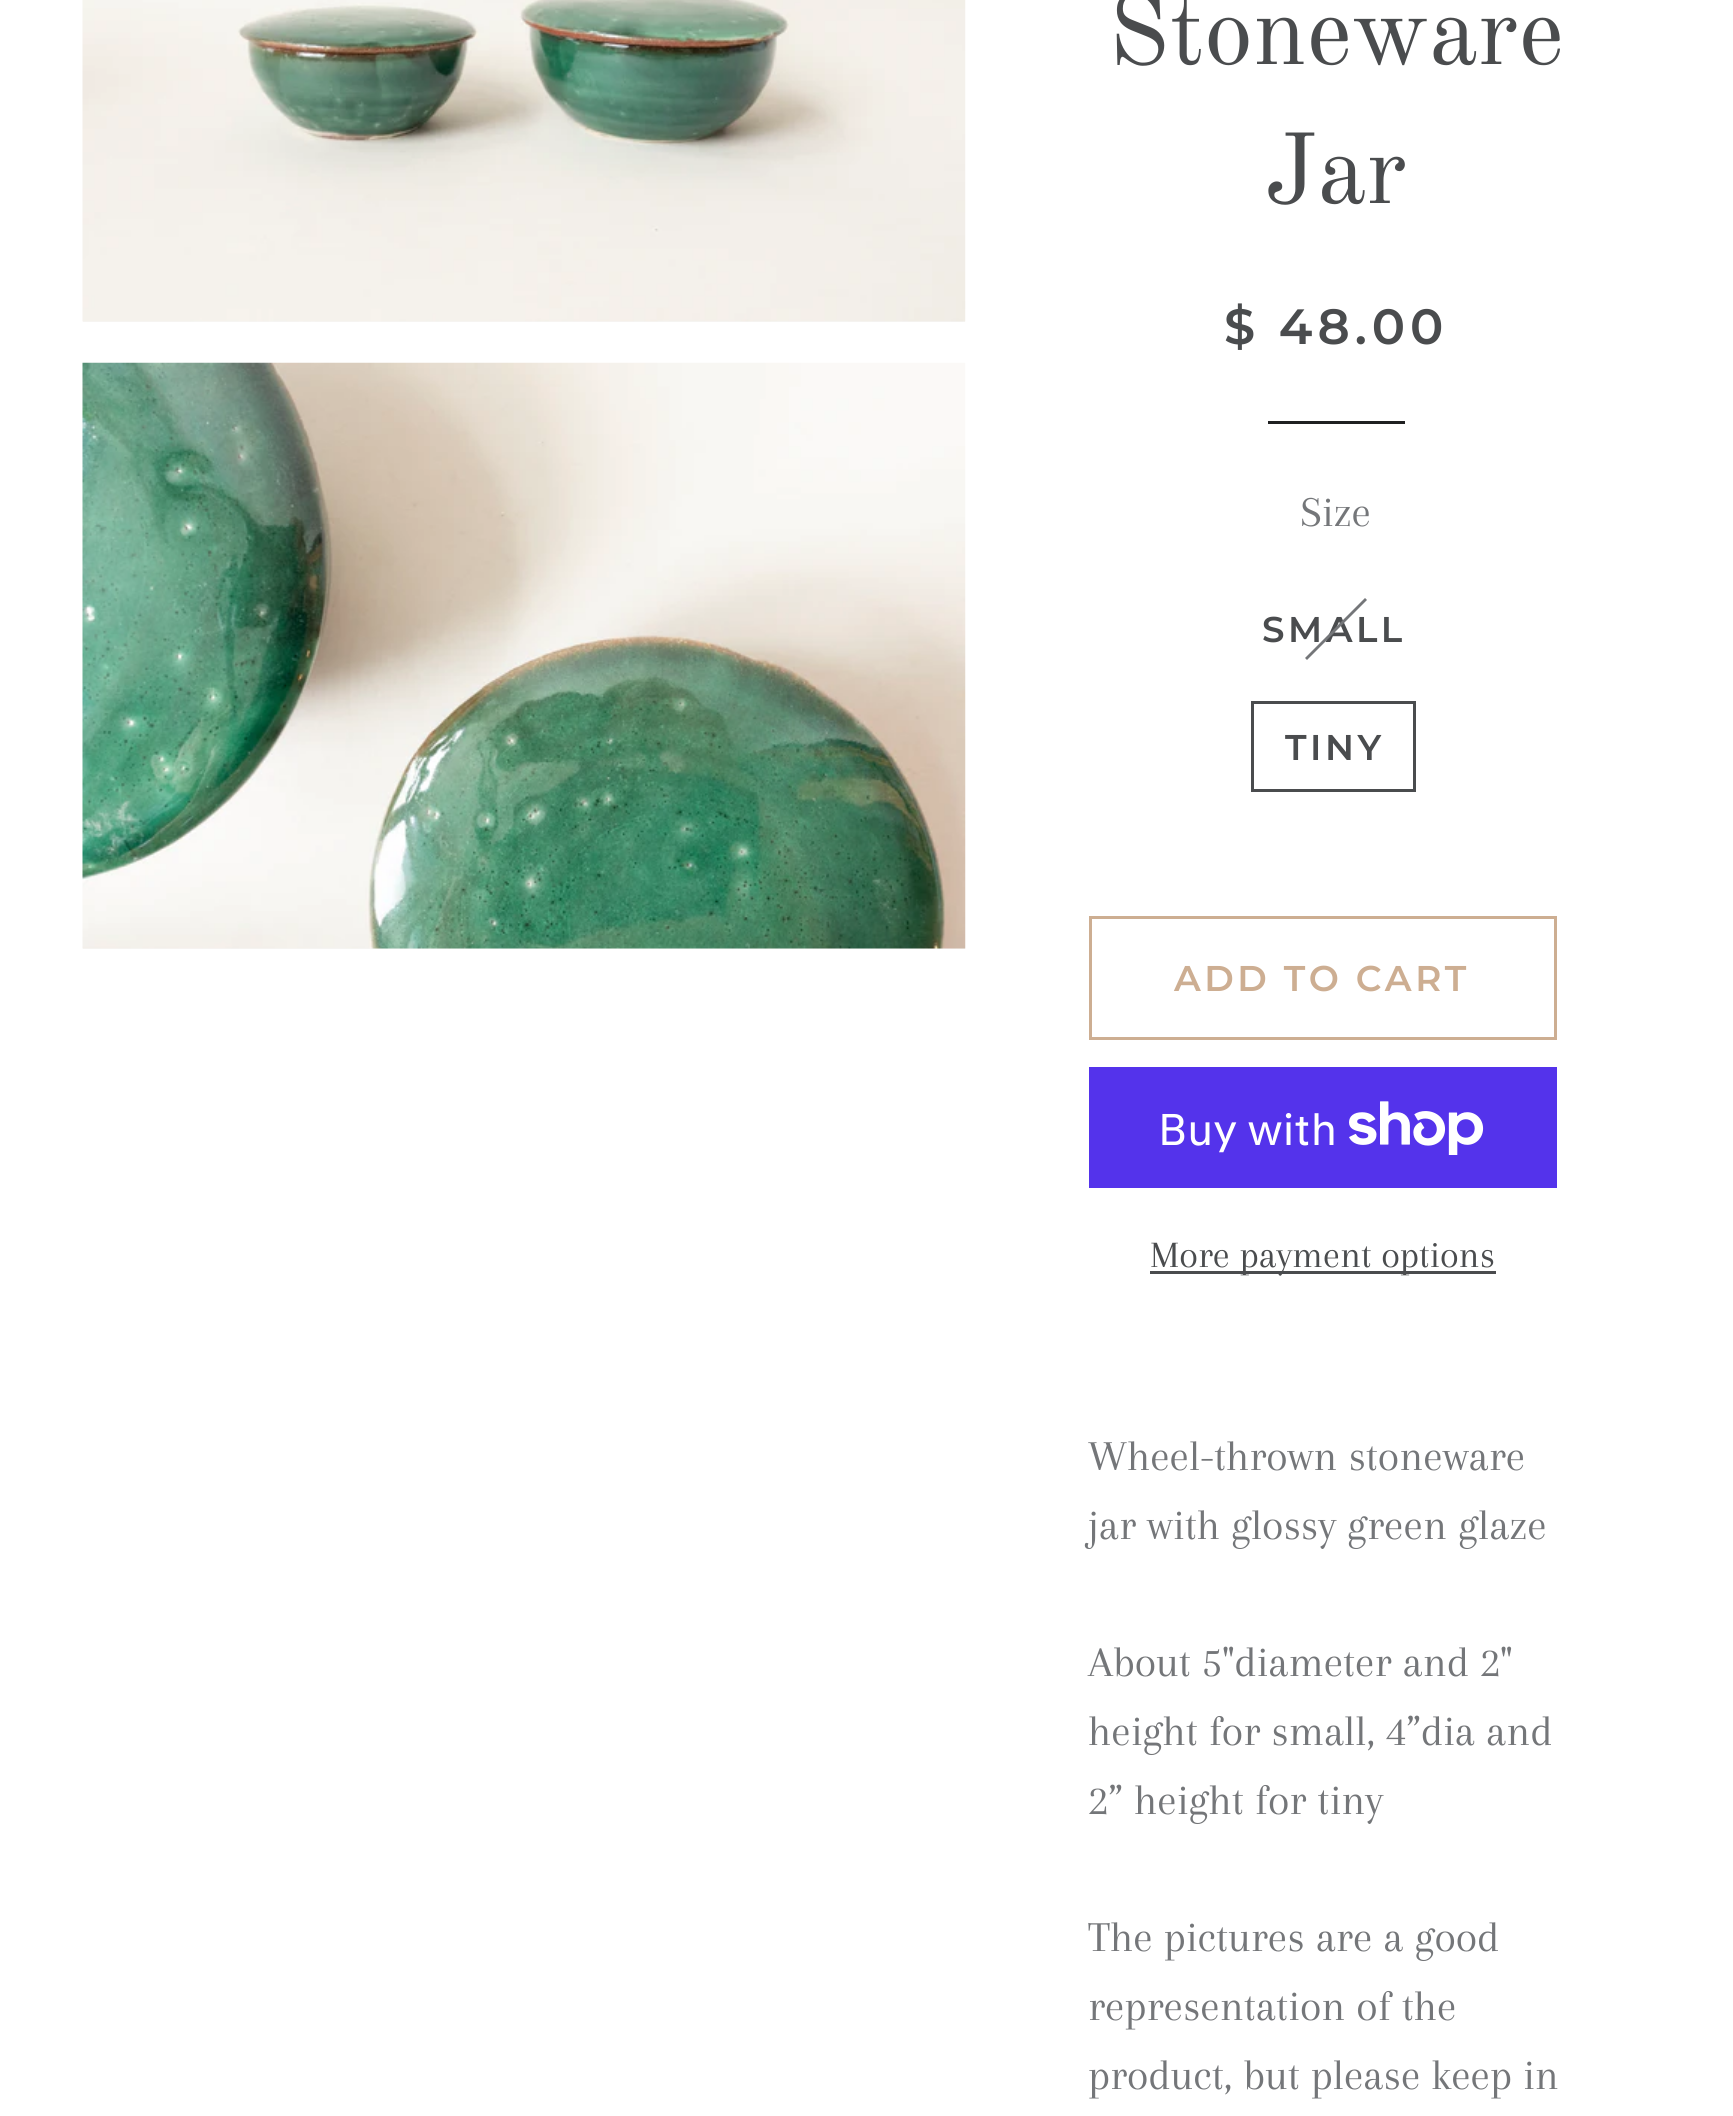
#include <cairo/cairo.h>
#include <math.h>
#include <stddef.h>


static void draw_spaced(cairo_t *cr, double x, double y, const char *s, double letter, double word) {
  cairo_move_to(cr, x, y);
  while (*s) {
    char ch[5] = {0};
    int n = 0;
    do ch[n++] = *s++; while ((*s & 0xC0) == 0x80);
    cairo_show_text(cr, ch);
    cairo_rel_move_to(cr, letter + word * (*ch == ' '), 0);
  }
}

static void draw_image(cairo_t *cr, const char *path, double x, double y, double w, double h) {
  cairo_surface_t *image = cairo_image_surface_create_from_png(path);
  cairo_save(cr);
  cairo_set_source_surface(cr, image, x, y);
  cairo_rectangle(cr, x, y, w, h);
  cairo_fill(cr);
  cairo_restore(cr);
  cairo_surface_destroy(image);
}

static void draw(cairo_t *cr) {
  cairo_set_source_rgb(cr, 1, 1, 1);
  cairo_paint(cr);
  cairo_set_source_rgb(cr, 246 / 255.0, 246 / 255.0, 246 / 255.0);
  cairo_rectangle(cr, 83, 321, 882, 1);
  cairo_fill(cr);
  draw_image(cr, "images/1.png", 82, 0, 884, 322);
  cairo_rectangle(cr, 83, 948, 882, 1);
  cairo_fill(cr);
  draw_image(cr, "images/2.png", 82, 362, 884, 587);
  cairo_set_source_rgb(cr, 31 / 255.0, 32 / 255.0, 33 / 255.0);
  cairo_rectangle(cr, 1268, 421, 137, 3);
  cairo_fill(cr);
  cairo_rectangle(cr, 1252.5, 702.5, 162, 88);
  cairo_set_source_rgb(cr, 74 / 255.0, 76 / 255.0, 78 / 255.0);
  cairo_set_line_width(cr, 3);
  cairo_stroke(cr);
  cairo_rectangle(cr, 1090.5, 917.5, 465, 121);
  cairo_set_source_rgb(cr, 205 / 255.0, 174 / 255.0, 146 / 255.0);
  cairo_stroke(cr);
  cairo_set_source_rgb(cr, 84 / 255.0, 51 / 255.0, 235 / 255.0);
  cairo_rectangle(cr, 1089, 1067, 468, 121);
  cairo_fill(cr);
  draw_image(cr, "images/3.png", 1349, 1101, 135, 54);
  cairo_set_source_rgb(cr, 74 / 255.0, 76 / 255.0, 78 / 255.0);
  cairo_rectangle(cr, 1150, 1271, 346, 3);
  cairo_fill(cr);
  cairo_select_font_face(cr, "Old Standard TT", CAIRO_FONT_SLANT_NORMAL, CAIRO_FONT_WEIGHT_NORMAL);
  cairo_set_font_size(cr, 99);
  cairo_move_to(cr, 1108, 64);
  cairo_show_text(cr, "Stoneware");
  cairo_move_to(cr, 1264, 203);
  cairo_show_text(cr, "Jar");
  cairo_select_font_face(cr, "Montserrat SemiBold", CAIRO_FONT_SLANT_NORMAL, CAIRO_FONT_WEIGHT_NORMAL);
  cairo_set_font_size(cr, 49.5);
  draw_spaced(cr, 1224, 344, "$ 48.00", 5, 0);
  cairo_select_font_face(cr, "Arapey", CAIRO_FONT_SLANT_NORMAL, CAIRO_FONT_WEIGHT_NORMAL);
  cairo_set_font_size(cr, 44);
  cairo_set_source_rgb(cr, 116 / 255.0, 118 / 255.0, 121 / 255.0);
  cairo_move_to(cr, 1300, 526);
  cairo_show_text(cr, "Size");
  cairo_select_font_face(cr, "Montserrat SemiBold", CAIRO_FONT_SLANT_NORMAL, CAIRO_FONT_WEIGHT_NORMAL);
  cairo_set_font_size(cr, 35.75);
  cairo_set_source_rgb(cr, 74 / 255.0, 76 / 255.0, 78 / 255.0);
  draw_spaced(cr, 1262, 642, "SMALL", 3.5, 0);
  cairo_set_source_rgb(cr, 116 / 255.0, 118 / 255.0, 121 / 255.0);
  cairo_new_path(cr);
  cairo_move_to(cr, 1365, 598);
  cairo_line_to(cr, 1367, 600);
  cairo_line_to(cr, 1307, 660);
  cairo_line_to(cr, 1305, 658);
  cairo_close_path(cr);
  cairo_fill(cr);
  cairo_set_source_rgb(cr, 74 / 255.0, 76 / 255.0, 78 / 255.0);
  draw_spaced(cr, 1285, 760, "TINY", 3.5, 0);
  cairo_set_source_rgb(cr, 205 / 255.0, 174 / 255.0, 146 / 255.0);
  draw_spaced(cr, 1174, 991, "ADD TO CART", 3.5, 0);
  cairo_select_font_face(cr, "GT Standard", CAIRO_FONT_SLANT_NORMAL, CAIRO_FONT_WEIGHT_NORMAL);
  cairo_set_font_size(cr, 44);
  cairo_set_source_rgb(cr, 1, 1, 1);
  cairo_move_to(cr, 1158, 1145);
  cairo_show_text(cr, "Buy with");
  cairo_select_font_face(cr, "Arapey", CAIRO_FONT_SLANT_NORMAL, CAIRO_FONT_WEIGHT_NORMAL);
  cairo_set_font_size(cr, 38.5);
  cairo_set_source_rgb(cr, 74 / 255.0, 76 / 255.0, 78 / 255.0);
  cairo_move_to(cr, 1150, 1267);
  cairo_show_text(cr, "More payment options");
  cairo_set_font_size(cr, 44);
  cairo_set_source_rgb(cr, 116 / 255.0, 118 / 255.0, 121 / 255.0);
  cairo_move_to(cr, 1088, 1470);
  cairo_show_text(cr, "Wheel-thrown stoneware");
  cairo_move_to(cr, 1088, 1539);
  cairo_show_text(cr, "jar with glossy green glaze");
  cairo_move_to(cr, 1088, 1676);
  cairo_show_text(cr, "About 5\"diameter and 2\"");
  cairo_move_to(cr, 1088, 1745);
  cairo_show_text(cr, "height for small, 4”dia and");
  cairo_move_to(cr, 1088, 1814);
  cairo_show_text(cr, "2” height for tiny");
  cairo_move_to(cr, 1088, 1951);
  cairo_show_text(cr, "The pictures are a good");
  cairo_move_to(cr, 1088, 2020);
  cairo_show_text(cr, "representation of the");
  cairo_move_to(cr, 1088, 2089);
  cairo_show_text(cr, "product, but please keep in");
}

int main(void) {
  cairo_surface_t *surface = cairo_image_surface_create(CAIRO_FORMAT_RGB24, 1733, 2116);
  cairo_t *cr = cairo_create(surface);
  cairo_font_options_t *options = cairo_font_options_create();
  cairo_font_options_set_hint_metrics(options, CAIRO_HINT_METRICS_OFF);
  cairo_font_options_set_hint_style(options, CAIRO_HINT_STYLE_NONE);
  cairo_set_font_options(cr, options);
  cairo_set_miter_limit(cr, 4);
  draw(cr);
  cairo_surface_write_to_png(surface, "out.png");
  cairo_font_options_destroy(options);
  cairo_destroy(cr);
  cairo_surface_destroy(surface);
  return 0;
}
